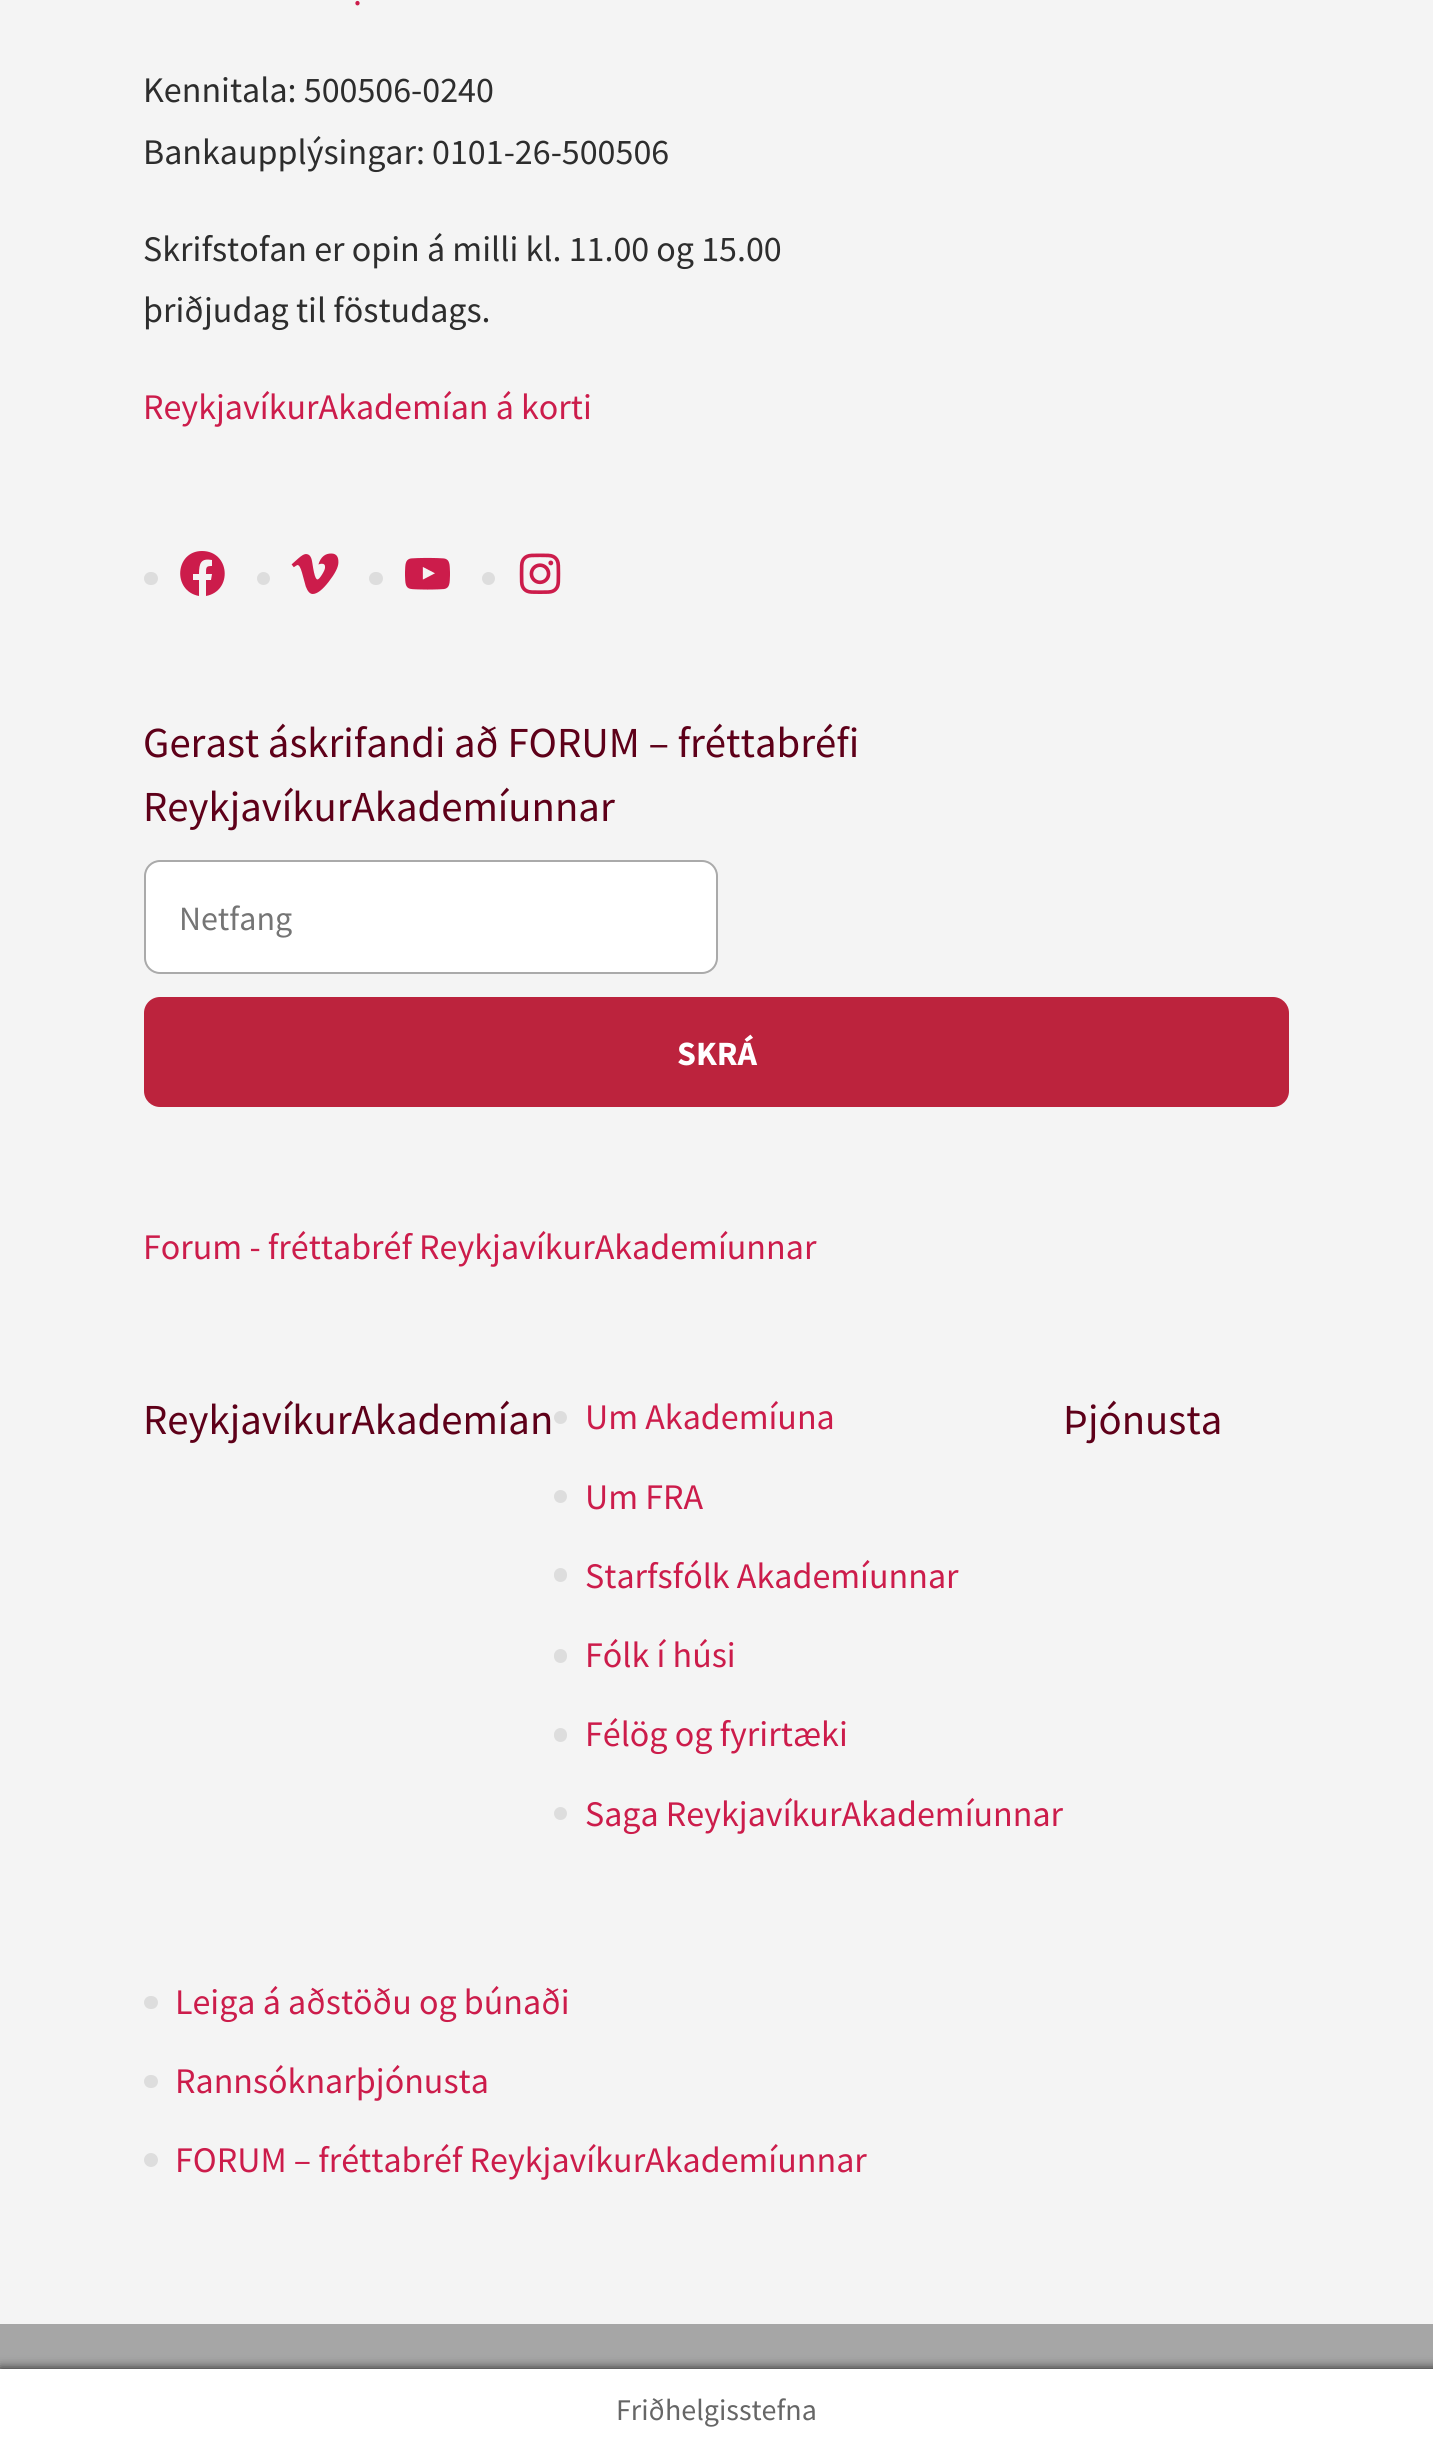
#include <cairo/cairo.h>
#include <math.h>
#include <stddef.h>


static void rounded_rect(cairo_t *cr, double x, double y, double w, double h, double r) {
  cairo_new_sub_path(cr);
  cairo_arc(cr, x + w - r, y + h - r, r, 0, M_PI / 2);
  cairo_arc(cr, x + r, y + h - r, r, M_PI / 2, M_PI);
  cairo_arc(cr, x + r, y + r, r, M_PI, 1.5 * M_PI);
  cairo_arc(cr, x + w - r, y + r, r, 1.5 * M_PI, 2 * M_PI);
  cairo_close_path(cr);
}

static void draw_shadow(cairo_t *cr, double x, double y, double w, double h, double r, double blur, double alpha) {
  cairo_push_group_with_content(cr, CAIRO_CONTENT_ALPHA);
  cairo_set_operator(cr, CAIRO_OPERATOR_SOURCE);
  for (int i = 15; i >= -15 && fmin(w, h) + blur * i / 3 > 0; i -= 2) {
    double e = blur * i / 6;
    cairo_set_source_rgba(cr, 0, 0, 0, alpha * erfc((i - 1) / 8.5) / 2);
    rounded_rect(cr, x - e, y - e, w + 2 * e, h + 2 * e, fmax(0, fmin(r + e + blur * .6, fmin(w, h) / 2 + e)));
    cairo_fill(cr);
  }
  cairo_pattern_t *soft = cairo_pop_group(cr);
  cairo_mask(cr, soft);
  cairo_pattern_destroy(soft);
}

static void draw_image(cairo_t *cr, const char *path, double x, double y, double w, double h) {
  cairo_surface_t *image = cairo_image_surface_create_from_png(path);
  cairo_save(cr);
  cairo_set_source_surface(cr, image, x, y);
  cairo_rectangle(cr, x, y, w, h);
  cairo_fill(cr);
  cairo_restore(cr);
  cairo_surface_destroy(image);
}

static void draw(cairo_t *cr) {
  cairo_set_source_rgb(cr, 1, 1, 1);
  cairo_paint(cr);
  cairo_set_source_rgb(cr, 244 / 255.0, 244 / 255.0, 244 / 255.0);
  cairo_rectangle(cr, 0, 0, 1433, 2324);
  cairo_fill(cr);
  cairo_set_source_rgb(cr, 221 / 255.0, 221 / 255.0, 221 / 255.0);
  rounded_rect(cr, 144, 572, 14, 13, 6.5);
  cairo_fill(cr);
  cairo_set_source_rgb(cr, 204 / 255.0, 28 / 255.0, 75 / 255.0);
  cairo_new_path(cr);
  cairo_move_to(cr, 202, 551);
  cairo_curve_to(cr, 175, 551, 172, 591, 199, 596);
  cairo_line_to(cr, 199, 580);
  cairo_line_to(cr, 193, 580);
  cairo_line_to(cr, 193, 574);
  cairo_line_to(cr, 199, 574);
  cairo_curve_to(cr, 199, 563, 201, 558, 212, 560);
  cairo_line_to(cr, 212, 566);
  cairo_curve_to(cr, 206, 566, 206, 567, 206, 574);
  cairo_line_to(cr, 212, 574);
  cairo_line_to(cr, 211, 580);
  cairo_line_to(cr, 206, 580);
  cairo_line_to(cr, 206, 596);
  cairo_curve_to(cr, 233, 591, 230, 551, 202, 551);
  cairo_close_path(cr);
  cairo_fill(cr);
  cairo_set_source_rgb(cr, 221 / 255.0, 221 / 255.0, 221 / 255.0);
  cairo_arc(cr, 263.5, 578.5, 6.5, 0, 2 * M_PI);
  cairo_fill(cr);
  draw_image(cr, "images/1.png", 291, 553, 48, 41);
  rounded_rect(cr, 369, 572, 14, 13, 6.5);
  cairo_fill(cr);
  draw_image(cr, "images/2.png", 405, 557, 45, 33);
  cairo_arc(cr, 488.5, 578.5, 6.5, 0, 2 * M_PI);
  cairo_fill(cr);
  draw_image(cr, "images/3.png", 519, 553, 42, 41);
  cairo_set_source_rgb(cr, 1, 1, 1);
  rounded_rect(cr, 145, 861, 572, 112, 15);
  cairo_fill_preserve(cr);
  cairo_set_source_rgb(cr, 170 / 255.0, 170 / 255.0, 170 / 255.0);
  cairo_stroke(cr);
  cairo_set_source_rgb(cr, 188 / 255.0, 35 / 255.0, 61 / 255.0);
  rounded_rect(cr, 144, 997, 1145, 110, 16);
  cairo_fill(cr);
  cairo_set_source_rgb(cr, 221 / 255.0, 221 / 255.0, 221 / 255.0);
  cairo_arc(cr, 560.5, 1417.5, 6.5, 0, 2 * M_PI);
  cairo_fill(cr);
  cairo_arc(cr, 560.5, 1496.5, 6.5, 0, 2 * M_PI);
  cairo_fill(cr);
  rounded_rect(cr, 554, 1568, 13, 14, 6.5);
  cairo_fill(cr);
  rounded_rect(cr, 554, 1649, 13, 14, 6.5);
  cairo_fill(cr);
  rounded_rect(cr, 554, 1728, 13, 14, 6.5);
  cairo_fill(cr);
  cairo_arc(cr, 560.5, 1813.5, 6.5, 0, 2 * M_PI);
  cairo_fill(cr);
  rounded_rect(cr, 144, 1996, 14, 13, 6.5);
  cairo_fill(cr);
  rounded_rect(cr, 144, 2075, 14, 13, 6.5);
  cairo_fill(cr);
  cairo_arc(cr, 151, 2160, 7, 0, 2 * M_PI);
  cairo_fill(cr);
  cairo_set_source_rgb(cr, 166 / 255.0, 166 / 255.0, 166 / 255.0);
  cairo_rectangle(cr, 0, 2324, 1433, 45);
  cairo_fill(cr);
  cairo_save(cr);
  cairo_set_fill_rule(cr, CAIRO_FILL_RULE_EVEN_ODD);
  cairo_new_path(cr);
  cairo_move_to(cr, 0, 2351);
  cairo_line_to(cr, 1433, 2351);
  cairo_line_to(cr, 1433, 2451);
  cairo_line_to(cr, 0, 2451);
  cairo_close_path(cr);
  cairo_move_to(cr, 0, 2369);
  cairo_line_to(cr, 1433, 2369);
  cairo_line_to(cr, 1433, 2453);
  cairo_line_to(cr, 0, 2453);
  cairo_close_path(cr);
  cairo_clip(cr);
  cairo_set_source_rgb(cr, 22 / 255.0, 22 / 255.0, 22 / 255.0);
  draw_shadow(cr, 0, 2369, 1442, 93, 0, 5.5, 1);
  cairo_restore(cr);
  cairo_select_font_face(cr, "Source Sans Pro", CAIRO_FONT_SLANT_NORMAL, CAIRO_FONT_WEIGHT_NORMAL);
  cairo_set_font_size(cr, 36);
  cairo_set_source_rgb(cr, 204 / 255.0, 28 / 255.0, 75 / 255.0);
  cairo_move_to(cr, 353, 5);
  cairo_show_text(cr, ".");
  cairo_set_source_rgb(cr, 45 / 255.0, 45 / 255.0, 45 / 255.0);
  cairo_move_to(cr, 143, 102);
  cairo_show_text(cr, "Kennitala: 500506-0240");
  cairo_move_to(cr, 143, 164);
  cairo_show_text(cr, "Bankaupplýsingar: 0101-26-500506");
  cairo_move_to(cr, 143, 261);
  cairo_show_text(cr, "Skrifstofan er opin á milli kl. 11.00 og 15.00");
  cairo_move_to(cr, 143, 322);
  cairo_show_text(cr, "þriðjudag til föstudags.");
  cairo_set_source_rgb(cr, 204 / 255.0, 28 / 255.0, 75 / 255.0);
  cairo_move_to(cr, 143, 419);
  cairo_show_text(cr, "ReykjavíkurAkademían á korti");
  cairo_set_font_size(cr, 42.75);
  cairo_set_source_rgb(cr, 94 / 255.0, 0, 25 / 255.0);
  cairo_move_to(cr, 143, 757);
  cairo_show_text(cr, "Gerast áskrifandi að FORUM – fréttabréfi");
  cairo_move_to(cr, 143, 821);
  cairo_show_text(cr, "ReykjavíkurAkademíunnar");
  cairo_set_font_size(cr, 34);
  cairo_set_source_rgb(cr, 117 / 255.0, 117 / 255.0, 117 / 255.0);
  cairo_move_to(cr, 179, 930);
  cairo_show_text(cr, "Netfang");
  cairo_select_font_face(cr, "Source Sans Pro", CAIRO_FONT_SLANT_NORMAL, CAIRO_FONT_WEIGHT_BOLD);
  cairo_set_source_rgb(cr, 1, 1, 1);
  cairo_move_to(cr, 677, 1065);
  cairo_show_text(cr, "SKRÁ");
  cairo_select_font_face(cr, "Source Sans Pro", CAIRO_FONT_SLANT_NORMAL, CAIRO_FONT_WEIGHT_NORMAL);
  cairo_set_font_size(cr, 36);
  cairo_set_source_rgb(cr, 204 / 255.0, 28 / 255.0, 75 / 255.0);
  cairo_move_to(cr, 143, 1259);
  cairo_show_text(cr, "Forum - fréttabréf ReykjavíkurAkademíunnar");
  cairo_set_font_size(cr, 42.75);
  cairo_set_source_rgb(cr, 94 / 255.0, 0, 25 / 255.0);
  cairo_move_to(cr, 143, 1434);
  cairo_show_text(cr, "ReykjavíkurAkademían");
  cairo_set_font_size(cr, 36);
  cairo_set_source_rgb(cr, 204 / 255.0, 28 / 255.0, 75 / 255.0);
  cairo_move_to(cr, 585, 1429);
  cairo_show_text(cr, "Um Akademíuna");
  cairo_move_to(cr, 585, 1509);
  cairo_show_text(cr, "Um FRA");
  cairo_move_to(cr, 585, 1588);
  cairo_show_text(cr, "Starfsfólk Akademíunnar");
  cairo_move_to(cr, 585, 1667);
  cairo_show_text(cr, "Fólk í húsi");
  cairo_move_to(cr, 585, 1746);
  cairo_show_text(cr, "Félög og fyrirtæki");
  cairo_move_to(cr, 585, 1826);
  cairo_show_text(cr, "Saga ReykjavíkurAkademíunnar");
  cairo_set_font_size(cr, 42.75);
  cairo_set_source_rgb(cr, 94 / 255.0, 0, 25 / 255.0);
  cairo_move_to(cr, 1063, 1434);
  cairo_show_text(cr, "Þjónusta");
  cairo_set_font_size(cr, 36);
  cairo_set_source_rgb(cr, 204 / 255.0, 28 / 255.0, 75 / 255.0);
  cairo_move_to(cr, 175, 2014);
  cairo_show_text(cr, "Leiga á aðstöðu og búnaði");
  cairo_move_to(cr, 175, 2093);
  cairo_show_text(cr, "Rannsóknarþjónusta");
  cairo_move_to(cr, 175, 2172);
  cairo_show_text(cr, "FORUM – fréttabréf ReykjavíkurAkademíunnar");
  cairo_set_font_size(cr, 30);
  cairo_set_source_rgb(cr, 102 / 255.0, 102 / 255.0, 102 / 255.0);
  cairo_move_to(cr, 616, 2420);
  cairo_show_text(cr, "Friðhelgisstefna");
}

int main(void) {
  cairo_surface_t *surface = cairo_image_surface_create(CAIRO_FORMAT_RGB24, 1433, 2451);
  cairo_t *cr = cairo_create(surface);
  cairo_font_options_t *options = cairo_font_options_create();
  cairo_font_options_set_hint_metrics(options, CAIRO_HINT_METRICS_OFF);
  cairo_font_options_set_hint_style(options, CAIRO_HINT_STYLE_NONE);
  cairo_set_font_options(cr, options);
  cairo_set_miter_limit(cr, 4);
  draw(cr);
  cairo_surface_write_to_png(surface, "out.png");
  cairo_font_options_destroy(options);
  cairo_destroy(cr);
  cairo_surface_destroy(surface);
  return 0;
}
